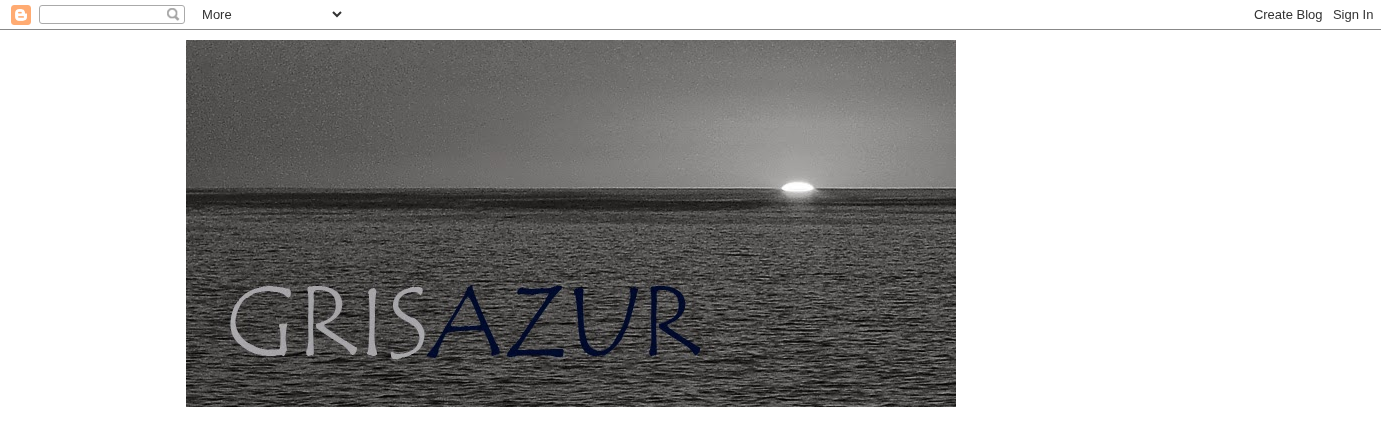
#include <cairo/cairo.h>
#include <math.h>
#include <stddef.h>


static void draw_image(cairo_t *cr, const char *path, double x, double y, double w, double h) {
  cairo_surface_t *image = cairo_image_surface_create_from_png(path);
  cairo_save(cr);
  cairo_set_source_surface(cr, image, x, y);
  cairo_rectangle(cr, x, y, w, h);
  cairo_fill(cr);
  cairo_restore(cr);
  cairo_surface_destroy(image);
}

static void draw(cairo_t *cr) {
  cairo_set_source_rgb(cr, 1, 1, 1);
  cairo_paint(cr);
  draw_image(cr, "images/1.png", 0, 5, 1381, 25);
  draw_image(cr, "images/2.png", 186, 40, 770, 367);
}

int main(void) {
  cairo_surface_t *surface = cairo_image_surface_create(CAIRO_FORMAT_RGB24, 1381, 433);
  cairo_t *cr = cairo_create(surface);
  cairo_font_options_t *options = cairo_font_options_create();
  cairo_font_options_set_hint_metrics(options, CAIRO_HINT_METRICS_OFF);
  cairo_font_options_set_hint_style(options, CAIRO_HINT_STYLE_NONE);
  cairo_set_font_options(cr, options);
  cairo_set_miter_limit(cr, 4);
  draw(cr);
  cairo_surface_write_to_png(surface, "out.png");
  cairo_font_options_destroy(options);
  cairo_destroy(cr);
  cairo_surface_destroy(surface);
  return 0;
}
